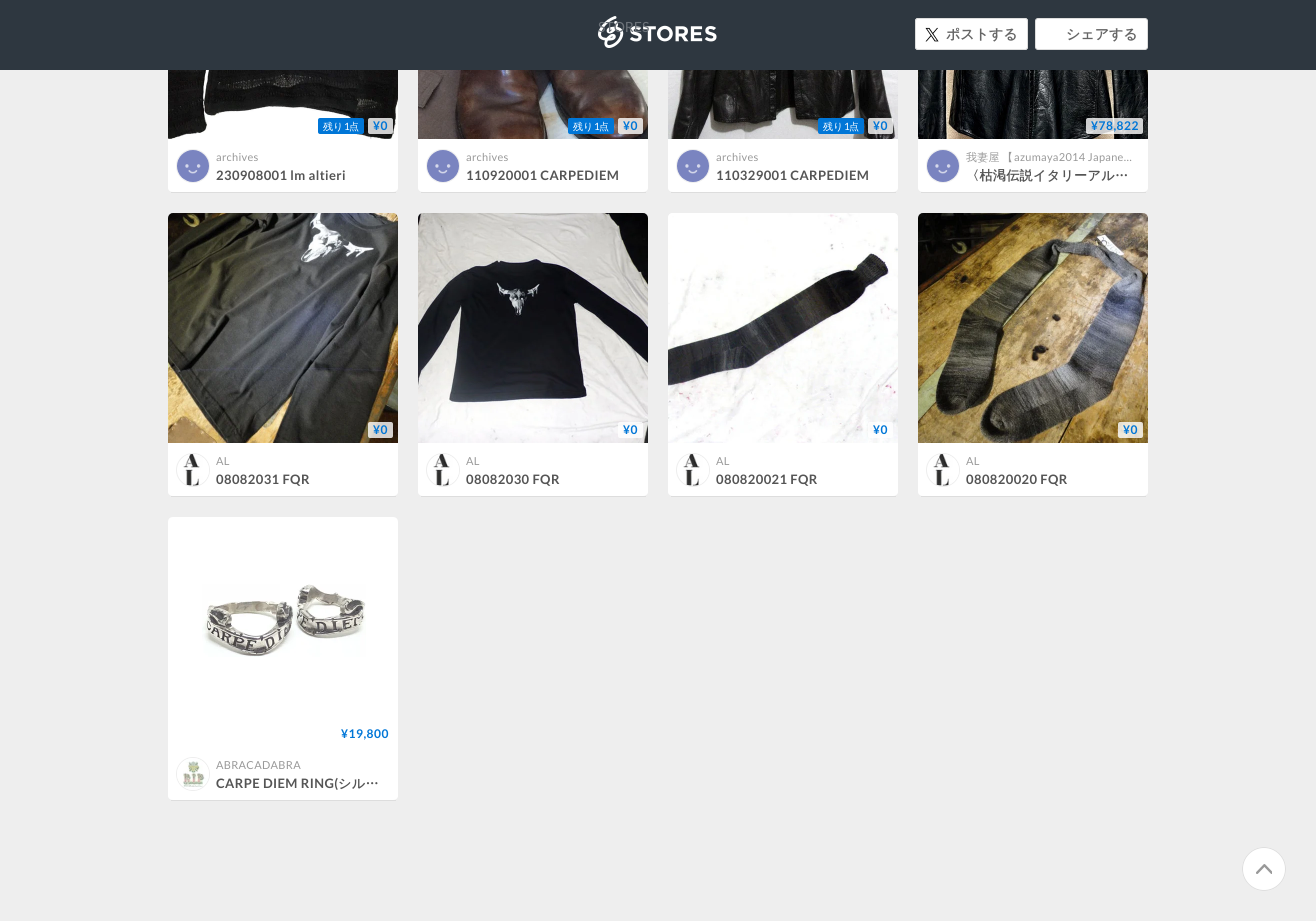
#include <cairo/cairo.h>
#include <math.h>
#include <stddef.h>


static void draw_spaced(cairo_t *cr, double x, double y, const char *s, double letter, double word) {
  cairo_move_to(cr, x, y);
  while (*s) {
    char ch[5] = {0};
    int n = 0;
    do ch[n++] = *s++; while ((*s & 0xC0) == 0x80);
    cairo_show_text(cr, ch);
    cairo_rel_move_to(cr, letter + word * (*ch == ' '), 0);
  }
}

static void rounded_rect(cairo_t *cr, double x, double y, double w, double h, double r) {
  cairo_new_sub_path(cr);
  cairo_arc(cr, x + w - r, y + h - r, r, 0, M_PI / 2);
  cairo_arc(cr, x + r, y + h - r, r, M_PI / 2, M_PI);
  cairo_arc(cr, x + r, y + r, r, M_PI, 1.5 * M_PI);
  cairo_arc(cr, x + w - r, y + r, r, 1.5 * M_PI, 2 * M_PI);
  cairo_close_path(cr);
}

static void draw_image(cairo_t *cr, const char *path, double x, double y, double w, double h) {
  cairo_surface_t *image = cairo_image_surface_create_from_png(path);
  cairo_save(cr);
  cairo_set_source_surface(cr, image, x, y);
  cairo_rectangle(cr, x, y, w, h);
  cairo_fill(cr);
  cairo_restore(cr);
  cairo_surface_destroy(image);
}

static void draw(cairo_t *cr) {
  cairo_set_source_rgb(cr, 238 / 255.0, 238 / 255.0, 238 / 255.0);
  cairo_paint(cr);
  cairo_set_source_rgb(cr, 1, 1, 1);
  cairo_new_path(cr);
  cairo_move_to(cr, 173, -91);
  cairo_line_to(cr, 393, -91);
  cairo_curve_to(cr, 396, -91, 398, -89, 398, -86);
  cairo_line_to(cr, 398, 188);
  cairo_curve_to(cr, 398, 190, 396, 192, 393, 192);
  cairo_line_to(cr, 173, 192);
  cairo_curve_to(cr, 170, 192, 168, 190, 168, 188);
  cairo_line_to(cr, 168, -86);
  cairo_curve_to(cr, 168, -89, 170, -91, 173, -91);
  cairo_close_path(cr);
  cairo_fill(cr);
  cairo_new_path(cr);
  cairo_move_to(cr, 423, -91);
  cairo_line_to(cr, 643, -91);
  cairo_curve_to(cr, 646, -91, 648, -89, 648, -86);
  cairo_line_to(cr, 648, 188);
  cairo_curve_to(cr, 648, 190, 646, 192, 643, 192);
  cairo_line_to(cr, 423, 192);
  cairo_curve_to(cr, 420, 192, 418, 190, 418, 188);
  cairo_line_to(cr, 418, -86);
  cairo_curve_to(cr, 418, -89, 420, -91, 423, -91);
  cairo_close_path(cr);
  cairo_fill(cr);
  cairo_new_path(cr);
  cairo_move_to(cr, 673, -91);
  cairo_line_to(cr, 893, -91);
  cairo_curve_to(cr, 896, -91, 898, -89, 898, -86);
  cairo_line_to(cr, 898, 188);
  cairo_curve_to(cr, 898, 190, 896, 192, 893, 192);
  cairo_line_to(cr, 673, 192);
  cairo_curve_to(cr, 670, 192, 668, 190, 668, 188);
  cairo_line_to(cr, 668, -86);
  cairo_curve_to(cr, 668, -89, 670, -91, 673, -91);
  cairo_close_path(cr);
  cairo_fill(cr);
  cairo_new_path(cr);
  cairo_move_to(cr, 923, -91);
  cairo_line_to(cr, 1143, -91);
  cairo_curve_to(cr, 1146, -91, 1148, -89, 1148, -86);
  cairo_line_to(cr, 1148, 188);
  cairo_curve_to(cr, 1148, 190, 1146, 192, 1143, 192);
  cairo_line_to(cr, 923, 192);
  cairo_curve_to(cr, 920, 192, 918, 190, 918, 188);
  cairo_line_to(cr, 918, -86);
  cairo_curve_to(cr, 918, -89, 920, -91, 923, -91);
  cairo_close_path(cr);
  cairo_fill(cr);
  cairo_set_source_rgb(cr, 46 / 255.0, 55 / 255.0, 64 / 255.0);
  cairo_rectangle(cr, 0, 0, 1316, 70);
  cairo_fill(cr);
  draw_image(cr, "images/1.png", 598, 16, 119, 32);
  cairo_set_source_rgb(cr, 1, 1, 1);
  rounded_rect(cr, 915, 18, 113, 32, 3);
  cairo_fill(cr);
  draw_image(cr, "images/2.png", 925, 27, 14, 15);
  rounded_rect(cr, 915.5, 18.5, 112, 31, 2.5);
  cairo_set_source_rgb(cr, 221 / 255.0, 221 / 255.0, 221 / 255.0);
  cairo_set_line_width(cr, 1);
  cairo_stroke(cr);
  cairo_set_source_rgb(cr, 1, 1, 1);
  rounded_rect(cr, 1035.5, 18.5, 112, 31, 2.5);
  cairo_fill_preserve(cr);
  cairo_set_source_rgb(cr, 221 / 255.0, 221 / 255.0, 221 / 255.0);
  cairo_stroke(cr);
  cairo_rectangle(cr, 171, 192, 225, 1);
  cairo_fill(cr);
  draw_image(cr, "images/3.png", 168, 70, 230, 69);
  cairo_set_source_rgb(cr, 0, 118 / 255.0, 215 / 255.0);
  rounded_rect(cr, 318, 118, 46, 16, 2);
  cairo_fill(cr);
  cairo_set_source_rgba(cr, 1, 1, 1, 0.8);
  rounded_rect(cr, 368, 118, 25, 16, 2);
  cairo_fill(cr);
  cairo_arc(cr, 193, 166, 16.5, 0, 2 * M_PI);
  cairo_set_source_rgb(cr, 238 / 255.0, 238 / 255.0, 238 / 255.0);
  cairo_stroke(cr);
  draw_image(cr, "images/4.png", 177, 150, 32, 32);
  cairo_set_source_rgb(cr, 221 / 255.0, 221 / 255.0, 221 / 255.0);
  cairo_rectangle(cr, 421, 192, 225, 1);
  cairo_fill(cr);
  draw_image(cr, "images/5.png", 418, 70, 230, 69);
  cairo_set_source_rgb(cr, 0, 118 / 255.0, 215 / 255.0);
  rounded_rect(cr, 568, 118, 46, 16, 2);
  cairo_fill(cr);
  cairo_set_source_rgba(cr, 1, 1, 1, 0.8);
  rounded_rect(cr, 618, 118, 25, 16, 2);
  cairo_fill(cr);
  cairo_arc(cr, 443, 166, 16.5, 0, 2 * M_PI);
  cairo_set_source_rgb(cr, 238 / 255.0, 238 / 255.0, 238 / 255.0);
  cairo_stroke(cr);
  draw_image(cr, "images/6.png", 427, 150, 32, 32);
  cairo_set_source_rgb(cr, 221 / 255.0, 221 / 255.0, 221 / 255.0);
  cairo_rectangle(cr, 671, 192, 225, 1);
  cairo_fill(cr);
  draw_image(cr, "images/7.png", 668, 70, 230, 69);
  cairo_set_source_rgb(cr, 0, 118 / 255.0, 215 / 255.0);
  rounded_rect(cr, 818, 118, 46, 16, 2);
  cairo_fill(cr);
  cairo_set_source_rgba(cr, 1, 1, 1, 0.8);
  rounded_rect(cr, 868, 118, 25, 16, 2);
  cairo_fill(cr);
  cairo_arc(cr, 693, 166, 16.5, 0, 2 * M_PI);
  cairo_set_source_rgb(cr, 238 / 255.0, 238 / 255.0, 238 / 255.0);
  cairo_stroke(cr);
  draw_image(cr, "images/6.png", 677, 150, 32, 32);
  cairo_set_source_rgb(cr, 221 / 255.0, 221 / 255.0, 221 / 255.0);
  cairo_rectangle(cr, 921, 192, 225, 1);
  cairo_fill(cr);
  draw_image(cr, "images/8.png", 918, 70, 230, 69);
  cairo_set_source_rgba(cr, 1, 1, 1, 0.8);
  rounded_rect(cr, 1086, 118, 57, 16, 2);
  cairo_fill(cr);
  cairo_arc(cr, 943, 166, 16.5, 0, 2 * M_PI);
  cairo_set_source_rgb(cr, 238 / 255.0, 238 / 255.0, 238 / 255.0);
  cairo_stroke(cr);
  draw_image(cr, "images/6.png", 927, 150, 32, 32);
  cairo_set_source_rgb(cr, 1, 1, 1);
  cairo_new_path(cr);
  cairo_move_to(cr, 173, 213);
  cairo_line_to(cr, 393, 213);
  cairo_curve_to(cr, 396, 213, 398, 215, 398, 218);
  cairo_line_to(cr, 398, 492);
  cairo_curve_to(cr, 398, 494, 396, 496, 393, 496);
  cairo_line_to(cr, 173, 496);
  cairo_curve_to(cr, 170, 496, 168, 494, 168, 492);
  cairo_line_to(cr, 168, 218);
  cairo_curve_to(cr, 168, 215, 170, 213, 173, 213);
  cairo_close_path(cr);
  cairo_fill(cr);
  cairo_set_source_rgb(cr, 221 / 255.0, 221 / 255.0, 221 / 255.0);
  cairo_rectangle(cr, 171, 496, 225, 1);
  cairo_fill(cr);
  draw_image(cr, "images/9.png", 168, 213, 230, 230);
  cairo_set_source_rgba(cr, 1, 1, 1, 0.8);
  rounded_rect(cr, 368, 422, 25, 16, 2);
  cairo_fill(cr);
  cairo_arc(cr, 193, 470, 16.5, 0, 2 * M_PI);
  cairo_set_source_rgb(cr, 238 / 255.0, 238 / 255.0, 238 / 255.0);
  cairo_stroke(cr);
  draw_image(cr, "images/10.png", 183, 454, 26, 32);
  cairo_set_source_rgb(cr, 1, 1, 1);
  cairo_new_path(cr);
  cairo_move_to(cr, 423, 213);
  cairo_line_to(cr, 643, 213);
  cairo_curve_to(cr, 646, 213, 648, 215, 648, 218);
  cairo_line_to(cr, 648, 492);
  cairo_curve_to(cr, 648, 494, 646, 496, 643, 496);
  cairo_line_to(cr, 423, 496);
  cairo_curve_to(cr, 420, 496, 418, 494, 418, 492);
  cairo_line_to(cr, 418, 218);
  cairo_curve_to(cr, 418, 215, 420, 213, 423, 213);
  cairo_close_path(cr);
  cairo_fill(cr);
  cairo_set_source_rgb(cr, 221 / 255.0, 221 / 255.0, 221 / 255.0);
  cairo_rectangle(cr, 421, 496, 225, 1);
  cairo_fill(cr);
  draw_image(cr, "images/11.png", 418, 213, 230, 230);
  cairo_set_source_rgba(cr, 1, 1, 1, 0.8);
  rounded_rect(cr, 618, 422, 25, 16, 2);
  cairo_fill(cr);
  cairo_arc(cr, 443, 470, 16.5, 0, 2 * M_PI);
  cairo_set_source_rgb(cr, 238 / 255.0, 238 / 255.0, 238 / 255.0);
  cairo_stroke(cr);
  draw_image(cr, "images/12.png", 433, 454, 26, 32);
  cairo_set_source_rgb(cr, 1, 1, 1);
  cairo_new_path(cr);
  cairo_move_to(cr, 673, 213);
  cairo_line_to(cr, 893, 213);
  cairo_curve_to(cr, 896, 213, 898, 215, 898, 218);
  cairo_line_to(cr, 898, 492);
  cairo_curve_to(cr, 898, 494, 896, 496, 893, 496);
  cairo_line_to(cr, 673, 496);
  cairo_curve_to(cr, 670, 496, 668, 494, 668, 492);
  cairo_line_to(cr, 668, 218);
  cairo_curve_to(cr, 668, 215, 670, 213, 673, 213);
  cairo_close_path(cr);
  cairo_fill(cr);
  cairo_set_source_rgb(cr, 221 / 255.0, 221 / 255.0, 221 / 255.0);
  cairo_rectangle(cr, 671, 496, 225, 1);
  cairo_fill(cr);
  draw_image(cr, "images/13.png", 668, 213, 230, 230);
  cairo_set_source_rgba(cr, 1, 1, 1, 0.8);
  rounded_rect(cr, 868, 422, 25, 16, 2);
  cairo_fill(cr);
  cairo_arc(cr, 693, 470, 16.5, 0, 2 * M_PI);
  cairo_set_source_rgb(cr, 238 / 255.0, 238 / 255.0, 238 / 255.0);
  cairo_stroke(cr);
  draw_image(cr, "images/12.png", 683, 454, 26, 32);
  cairo_set_source_rgb(cr, 1, 1, 1);
  cairo_new_path(cr);
  cairo_move_to(cr, 923, 213);
  cairo_line_to(cr, 1143, 213);
  cairo_curve_to(cr, 1146, 213, 1148, 215, 1148, 218);
  cairo_line_to(cr, 1148, 492);
  cairo_curve_to(cr, 1148, 494, 1146, 496, 1143, 496);
  cairo_line_to(cr, 923, 496);
  cairo_curve_to(cr, 920, 496, 918, 494, 918, 492);
  cairo_line_to(cr, 918, 218);
  cairo_curve_to(cr, 918, 215, 920, 213, 923, 213);
  cairo_close_path(cr);
  cairo_fill(cr);
  cairo_set_source_rgb(cr, 221 / 255.0, 221 / 255.0, 221 / 255.0);
  cairo_rectangle(cr, 921, 496, 225, 1);
  cairo_fill(cr);
  draw_image(cr, "images/14.png", 918, 213, 230, 230);
  cairo_set_source_rgba(cr, 1, 1, 1, 0.8);
  rounded_rect(cr, 1118, 422, 25, 16, 2);
  cairo_fill(cr);
  cairo_arc(cr, 943, 470, 16.5, 0, 2 * M_PI);
  cairo_set_source_rgb(cr, 238 / 255.0, 238 / 255.0, 238 / 255.0);
  cairo_stroke(cr);
  draw_image(cr, "images/12.png", 933, 454, 26, 32);
  cairo_set_source_rgb(cr, 1, 1, 1);
  cairo_new_path(cr);
  cairo_move_to(cr, 173, 517);
  cairo_line_to(cr, 393, 517);
  cairo_curve_to(cr, 396, 517, 398, 519, 398, 522);
  cairo_line_to(cr, 398, 796);
  cairo_curve_to(cr, 398, 798, 396, 800, 393, 800);
  cairo_line_to(cr, 173, 800);
  cairo_curve_to(cr, 170, 800, 168, 798, 168, 796);
  cairo_line_to(cr, 168, 522);
  cairo_curve_to(cr, 168, 519, 170, 517, 173, 517);
  cairo_close_path(cr);
  cairo_fill(cr);
  cairo_set_source_rgb(cr, 221 / 255.0, 221 / 255.0, 221 / 255.0);
  cairo_rectangle(cr, 171, 800, 225, 1);
  cairo_fill(cr);
  draw_image(cr, "images/15.png", 202, 584, 164, 73);
  cairo_arc(cr, 193, 774, 16.5, 0, 2 * M_PI);
  cairo_set_source_rgb(cr, 238 / 255.0, 238 / 255.0, 238 / 255.0);
  cairo_stroke(cr);
  draw_image(cr, "images/16.png", 177, 758, 32, 32);
  cairo_set_source_rgb(cr, 1, 1, 1);
  cairo_arc(cr, 1264, 869, 22, 0, 2 * M_PI);
  cairo_fill(cr);
  draw_image(cr, "images/17.png", 1256, 864, 16, 10);
  cairo_arc(cr, 1264, 869, 21.5, 0, 2 * M_PI);
  cairo_set_source_rgb(cr, 222 / 255.0, 222 / 255.0, 222 / 255.0);
  cairo_stroke(cr);
  cairo_select_font_face(cr, "Lato", CAIRO_FONT_SLANT_NORMAL, CAIRO_FONT_WEIGHT_NORMAL);
  cairo_set_font_size(cr, 14);
  cairo_set_source_rgb(cr, 108 / 255.0, 114 / 255.0, 121 / 255.0);
  cairo_move_to(cr, 598, 32);
  cairo_show_text(cr, "STORES");
  cairo_select_font_face(cr, "WenQuanYi Zen Hei", CAIRO_FONT_SLANT_NORMAL, CAIRO_FONT_WEIGHT_BOLD);
  cairo_set_source_rgb(cr, 102 / 255.0, 102 / 255.0, 102 / 255.0);
  cairo_move_to(cr, 946, 39);
  cairo_show_text(cr, "ポストする");
  cairo_move_to(cr, 1066, 39);
  cairo_show_text(cr, "シェアする");
  cairo_select_font_face(cr, "WenQuanYi Zen Hei Medium", CAIRO_FONT_SLANT_NORMAL, CAIRO_FONT_WEIGHT_NORMAL);
  cairo_set_font_size(cr, 10);
  cairo_set_source_rgb(cr, 1, 1, 1);
  cairo_move_to(cr, 323, 130);
  cairo_show_text(cr, "残り");
  cairo_select_font_face(cr, "Lato", CAIRO_FONT_SLANT_NORMAL, CAIRO_FONT_WEIGHT_NORMAL);
  cairo_move_to(cr, 344, 130);
  cairo_show_text(cr, "1");
  cairo_select_font_face(cr, "WenQuanYi Zen Hei Medium", CAIRO_FONT_SLANT_NORMAL, CAIRO_FONT_WEIGHT_NORMAL);
  cairo_move_to(cr, 349, 130);
  cairo_show_text(cr, "点");
  cairo_select_font_face(cr, "Lato", CAIRO_FONT_SLANT_NORMAL, CAIRO_FONT_WEIGHT_BOLD);
  cairo_set_font_size(cr, 12);
  cairo_set_source_rgb(cr, 0, 118 / 255.0, 215 / 255.0);
  draw_spaced(cr, 373, 130, "¥0", 0.5, 0);
  cairo_select_font_face(cr, "Lato", CAIRO_FONT_SLANT_NORMAL, CAIRO_FONT_WEIGHT_NORMAL);
  cairo_set_font_size(cr, 11);
  cairo_set_source_rgb(cr, 153 / 255.0, 153 / 255.0, 153 / 255.0);
  draw_spaced(cr, 216, 161, "archives", 0.3, 0);
  cairo_select_font_face(cr, "Lato", CAIRO_FONT_SLANT_NORMAL, CAIRO_FONT_WEIGHT_BOLD);
  cairo_set_font_size(cr, 13);
  cairo_set_source_rgb(cr, 85 / 255.0, 85 / 255.0, 85 / 255.0);
  draw_spaced(cr, 216, 180, "230908001 lm altieri", 0.4, 0);
  cairo_select_font_face(cr, "WenQuanYi Zen Hei Medium", CAIRO_FONT_SLANT_NORMAL, CAIRO_FONT_WEIGHT_NORMAL);
  cairo_set_font_size(cr, 10);
  cairo_set_source_rgb(cr, 1, 1, 1);
  cairo_move_to(cr, 573, 130);
  cairo_show_text(cr, "残り");
  cairo_select_font_face(cr, "Lato", CAIRO_FONT_SLANT_NORMAL, CAIRO_FONT_WEIGHT_NORMAL);
  cairo_move_to(cr, 594, 130);
  cairo_show_text(cr, "1");
  cairo_select_font_face(cr, "WenQuanYi Zen Hei Medium", CAIRO_FONT_SLANT_NORMAL, CAIRO_FONT_WEIGHT_NORMAL);
  cairo_move_to(cr, 599, 130);
  cairo_show_text(cr, "点");
  cairo_select_font_face(cr, "Lato", CAIRO_FONT_SLANT_NORMAL, CAIRO_FONT_WEIGHT_BOLD);
  cairo_set_font_size(cr, 12);
  cairo_set_source_rgb(cr, 0, 118 / 255.0, 215 / 255.0);
  draw_spaced(cr, 623, 130, "¥0", 0.5, 0);
  cairo_select_font_face(cr, "Lato", CAIRO_FONT_SLANT_NORMAL, CAIRO_FONT_WEIGHT_NORMAL);
  cairo_set_font_size(cr, 11);
  cairo_set_source_rgb(cr, 153 / 255.0, 153 / 255.0, 153 / 255.0);
  draw_spaced(cr, 466, 161, "archives", 0.3, 0);
  cairo_select_font_face(cr, "Lato", CAIRO_FONT_SLANT_NORMAL, CAIRO_FONT_WEIGHT_BOLD);
  cairo_set_font_size(cr, 13);
  cairo_set_source_rgb(cr, 85 / 255.0, 85 / 255.0, 85 / 255.0);
  draw_spaced(cr, 466, 180, "110920001 CARPEDIEM", 0.4, 0);
  cairo_select_font_face(cr, "WenQuanYi Zen Hei Medium", CAIRO_FONT_SLANT_NORMAL, CAIRO_FONT_WEIGHT_NORMAL);
  cairo_set_font_size(cr, 10);
  cairo_set_source_rgb(cr, 1, 1, 1);
  cairo_move_to(cr, 823, 130);
  cairo_show_text(cr, "残り");
  cairo_select_font_face(cr, "Lato", CAIRO_FONT_SLANT_NORMAL, CAIRO_FONT_WEIGHT_NORMAL);
  cairo_move_to(cr, 844, 130);
  cairo_show_text(cr, "1");
  cairo_select_font_face(cr, "WenQuanYi Zen Hei Medium", CAIRO_FONT_SLANT_NORMAL, CAIRO_FONT_WEIGHT_NORMAL);
  cairo_move_to(cr, 849, 130);
  cairo_show_text(cr, "点");
  cairo_select_font_face(cr, "Lato", CAIRO_FONT_SLANT_NORMAL, CAIRO_FONT_WEIGHT_BOLD);
  cairo_set_font_size(cr, 12);
  cairo_set_source_rgb(cr, 0, 118 / 255.0, 215 / 255.0);
  draw_spaced(cr, 873, 130, "¥0", 0.5, 0);
  cairo_select_font_face(cr, "Lato", CAIRO_FONT_SLANT_NORMAL, CAIRO_FONT_WEIGHT_NORMAL);
  cairo_set_font_size(cr, 11);
  cairo_set_source_rgb(cr, 153 / 255.0, 153 / 255.0, 153 / 255.0);
  draw_spaced(cr, 716, 161, "archives", 0.3, 0);
  cairo_select_font_face(cr, "Lato", CAIRO_FONT_SLANT_NORMAL, CAIRO_FONT_WEIGHT_BOLD);
  cairo_set_font_size(cr, 13);
  cairo_set_source_rgb(cr, 85 / 255.0, 85 / 255.0, 85 / 255.0);
  draw_spaced(cr, 716, 180, "110329001 CARPEDIEM", 0.4, 0);
  cairo_set_font_size(cr, 12);
  cairo_set_source_rgb(cr, 0, 118 / 255.0, 215 / 255.0);
  draw_spaced(cr, 1091, 130, "¥78,822", 0.5, 0);
  cairo_select_font_face(cr, "WenQuanYi Zen Hei Medium", CAIRO_FONT_SLANT_NORMAL, CAIRO_FONT_WEIGHT_NORMAL);
  cairo_set_font_size(cr, 11);
  cairo_set_source_rgb(cr, 153 / 255.0, 153 / 255.0, 153 / 255.0);
  draw_spaced(cr, 966, 161, "我妻屋", 0.3, 0);
  draw_spaced(cr, 1002, 161, "【", 0.3, 0);
  cairo_select_font_face(cr, "Lato", CAIRO_FONT_SLANT_NORMAL, CAIRO_FONT_WEIGHT_NORMAL);
  draw_spaced(cr, 1014, 161, "azumaya2014 Japane…", 0.3, 0);
  cairo_select_font_face(cr, "WenQuanYi Zen Hei", CAIRO_FONT_SLANT_NORMAL, CAIRO_FONT_WEIGHT_BOLD);
  cairo_set_font_size(cr, 13);
  cairo_set_source_rgb(cr, 85 / 255.0, 85 / 255.0, 85 / 255.0);
  draw_spaced(cr, 966, 180, "〈枯渇伝説イタリーアル…", 0.4, 0);
  cairo_select_font_face(cr, "Lato", CAIRO_FONT_SLANT_NORMAL, CAIRO_FONT_WEIGHT_BOLD);
  cairo_set_font_size(cr, 12);
  cairo_set_source_rgb(cr, 0, 118 / 255.0, 215 / 255.0);
  draw_spaced(cr, 373, 434, "¥0", 0.5, 0);
  cairo_select_font_face(cr, "Lato", CAIRO_FONT_SLANT_NORMAL, CAIRO_FONT_WEIGHT_NORMAL);
  cairo_set_font_size(cr, 11);
  cairo_set_source_rgb(cr, 153 / 255.0, 153 / 255.0, 153 / 255.0);
  draw_spaced(cr, 216, 465, "AL", 0.3, 0);
  cairo_select_font_face(cr, "Lato", CAIRO_FONT_SLANT_NORMAL, CAIRO_FONT_WEIGHT_BOLD);
  cairo_set_font_size(cr, 13);
  cairo_set_source_rgb(cr, 85 / 255.0, 85 / 255.0, 85 / 255.0);
  draw_spaced(cr, 216, 484, "08082031 FQR", 0.4, 0);
  cairo_set_font_size(cr, 12);
  cairo_set_source_rgb(cr, 0, 118 / 255.0, 215 / 255.0);
  draw_spaced(cr, 623, 434, "¥0", 0.5, 0);
  cairo_select_font_face(cr, "Lato", CAIRO_FONT_SLANT_NORMAL, CAIRO_FONT_WEIGHT_NORMAL);
  cairo_set_font_size(cr, 11);
  cairo_set_source_rgb(cr, 153 / 255.0, 153 / 255.0, 153 / 255.0);
  draw_spaced(cr, 466, 465, "AL", 0.3, 0);
  cairo_select_font_face(cr, "Lato", CAIRO_FONT_SLANT_NORMAL, CAIRO_FONT_WEIGHT_BOLD);
  cairo_set_font_size(cr, 13);
  cairo_set_source_rgb(cr, 85 / 255.0, 85 / 255.0, 85 / 255.0);
  draw_spaced(cr, 466, 484, "08082030 FQR", 0.4, 0);
  cairo_set_font_size(cr, 12);
  cairo_set_source_rgb(cr, 0, 118 / 255.0, 215 / 255.0);
  draw_spaced(cr, 873, 434, "¥0", 0.5, 0);
  cairo_select_font_face(cr, "Lato", CAIRO_FONT_SLANT_NORMAL, CAIRO_FONT_WEIGHT_NORMAL);
  cairo_set_font_size(cr, 11);
  cairo_set_source_rgb(cr, 153 / 255.0, 153 / 255.0, 153 / 255.0);
  draw_spaced(cr, 716, 465, "AL", 0.3, 0);
  cairo_select_font_face(cr, "Lato", CAIRO_FONT_SLANT_NORMAL, CAIRO_FONT_WEIGHT_BOLD);
  cairo_set_font_size(cr, 13);
  cairo_set_source_rgb(cr, 85 / 255.0, 85 / 255.0, 85 / 255.0);
  draw_spaced(cr, 716, 484, "080820021 FQR", 0.4, 0);
  cairo_set_font_size(cr, 12);
  cairo_set_source_rgb(cr, 0, 118 / 255.0, 215 / 255.0);
  draw_spaced(cr, 1123, 434, "¥0", 0.5, 0);
  cairo_select_font_face(cr, "Lato", CAIRO_FONT_SLANT_NORMAL, CAIRO_FONT_WEIGHT_NORMAL);
  cairo_set_font_size(cr, 11);
  cairo_set_source_rgb(cr, 153 / 255.0, 153 / 255.0, 153 / 255.0);
  draw_spaced(cr, 966, 465, "AL", 0.3, 0);
  cairo_select_font_face(cr, "Lato", CAIRO_FONT_SLANT_NORMAL, CAIRO_FONT_WEIGHT_BOLD);
  cairo_set_font_size(cr, 13);
  cairo_set_source_rgb(cr, 85 / 255.0, 85 / 255.0, 85 / 255.0);
  draw_spaced(cr, 966, 484, "080820020 FQR", 0.4, 0);
  cairo_set_font_size(cr, 12);
  cairo_set_source_rgb(cr, 0, 118 / 255.0, 215 / 255.0);
  draw_spaced(cr, 341, 738, "¥19,800", 0.5, 0);
  cairo_select_font_face(cr, "Lato", CAIRO_FONT_SLANT_NORMAL, CAIRO_FONT_WEIGHT_NORMAL);
  cairo_set_font_size(cr, 11);
  cairo_set_source_rgb(cr, 153 / 255.0, 153 / 255.0, 153 / 255.0);
  draw_spaced(cr, 216, 769, "ABRACADABRA", 0.3, 0);
  cairo_select_font_face(cr, "Lato", CAIRO_FONT_SLANT_NORMAL, CAIRO_FONT_WEIGHT_BOLD);
  cairo_set_font_size(cr, 13);
  cairo_set_source_rgb(cr, 85 / 255.0, 85 / 255.0, 85 / 255.0);
  draw_spaced(cr, 216, 788, "CARPE DIEM RING(", 0.4, 0);
  cairo_select_font_face(cr, "WenQuanYi Zen Hei", CAIRO_FONT_SLANT_NORMAL, CAIRO_FONT_WEIGHT_BOLD);
  draw_spaced(cr, 338, 788, "シル…", 0.4, 0);
}

int main(void) {
  cairo_surface_t *surface = cairo_image_surface_create(CAIRO_FORMAT_RGB24, 1316, 921);
  cairo_t *cr = cairo_create(surface);
  cairo_font_options_t *options = cairo_font_options_create();
  cairo_font_options_set_hint_metrics(options, CAIRO_HINT_METRICS_OFF);
  cairo_font_options_set_hint_style(options, CAIRO_HINT_STYLE_NONE);
  cairo_set_font_options(cr, options);
  cairo_set_miter_limit(cr, 4);
  draw(cr);
  cairo_surface_write_to_png(surface, "out.png");
  cairo_font_options_destroy(options);
  cairo_destroy(cr);
  cairo_surface_destroy(surface);
  return 0;
}
